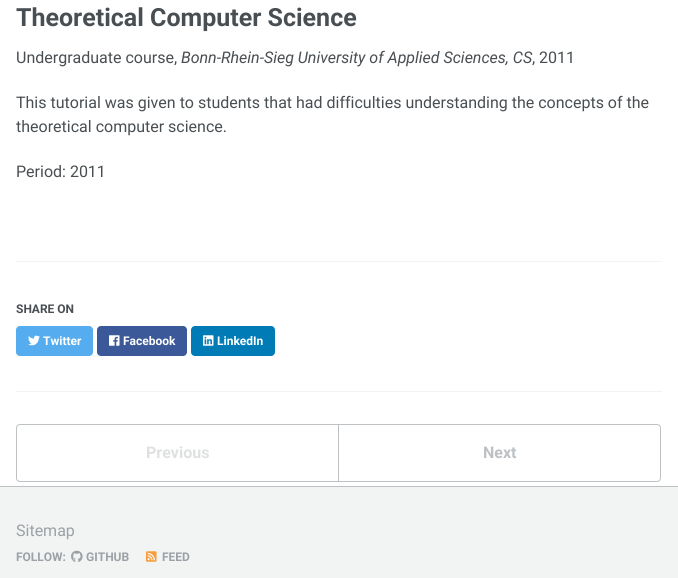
#include <cairo/cairo.h>
#include <math.h>
#include <stddef.h>


static void rounded_rect(cairo_t *cr, double x, double y, double w, double h, double r) {
  cairo_new_sub_path(cr);
  cairo_arc(cr, x + w - r, y + h - r, r, 0, M_PI / 2);
  cairo_arc(cr, x + r, y + h - r, r, M_PI / 2, M_PI);
  cairo_arc(cr, x + r, y + r, r, M_PI, 1.5 * M_PI);
  cairo_arc(cr, x + w - r, y + r, r, 1.5 * M_PI, 2 * M_PI);
  cairo_close_path(cr);
}

static void draw_image(cairo_t *cr, const char *path, double x, double y, double w, double h) {
  cairo_surface_t *image = cairo_image_surface_create_from_png(path);
  cairo_save(cr);
  cairo_set_source_surface(cr, image, x, y);
  cairo_rectangle(cr, x, y, w, h);
  cairo_fill(cr);
  cairo_restore(cr);
  cairo_surface_destroy(image);
}

static void draw(cairo_t *cr) {
  cairo_set_source_rgb(cr, 1, 1, 1);
  cairo_paint(cr);
  cairo_set_source_rgb(cr, 242 / 255.0, 243 / 255.0, 243 / 255.0);
  cairo_rectangle(cr, 16, 261, 646, 1);
  cairo_fill(cr);
  cairo_set_source_rgb(cr, 85 / 255.0, 172 / 255.0, 238 / 255.0);
  rounded_rect(cr, 16, 326, 77, 30, 4);
  cairo_fill(cr);
  draw_image(cr, "images/1.png", 28, 335, 12, 11);
  cairo_set_source_rgb(cr, 59 / 255.0, 89 / 255.0, 152 / 255.0);
  rounded_rect(cr, 97, 326, 90, 30, 4);
  cairo_fill(cr);
  draw_image(cr, "images/2.png", 109, 335, 11, 11);
  cairo_set_source_rgb(cr, 0, 123 / 255.0, 182 / 255.0);
  rounded_rect(cr, 191, 326, 84, 30, 4);
  cairo_fill(cr);
  draw_image(cr, "images/3.png", 203, 335, 11, 11);
  cairo_set_source_rgb(cr, 242 / 255.0, 243 / 255.0, 243 / 255.0);
  cairo_rectangle(cr, 16, 391, 646, 1);
  cairo_fill(cr);
  cairo_new_path(cr);
  cairo_move_to(cr, 20, 424.5);
  cairo_line_to(cr, 338.5, 424.5);
  cairo_line_to(cr, 338.5, 481.5);
  cairo_line_to(cr, 20, 481.5);
  cairo_curve_to(cr, 18, 481.5, 16.5, 480, 16.5, 478);
  cairo_line_to(cr, 16.5, 428);
  cairo_curve_to(cr, 16.5, 426, 18, 424.5, 20, 424.5);
  cairo_close_path(cr);
  cairo_set_source_rgb(cr, 189 / 255.0, 193 / 255.0, 196 / 255.0);
  cairo_set_line_width(cr, 1);
  cairo_stroke(cr);
  cairo_new_path(cr);
  cairo_move_to(cr, 338.5, 424.5);
  cairo_line_to(cr, 657, 424.5);
  cairo_curve_to(cr, 659, 424.5, 660.5, 426, 660.5, 428);
  cairo_line_to(cr, 660.5, 478);
  cairo_curve_to(cr, 660.5, 480, 659, 481.5, 657, 481.5);
  cairo_line_to(cr, 338.5, 481.5);
  cairo_close_path(cr);
  cairo_stroke(cr);
  cairo_set_source_rgb(cr, 242 / 255.0, 243 / 255.0, 243 / 255.0);
  cairo_rectangle(cr, 0, 487, 678, 91);
  cairo_fill(cr);
  cairo_set_source_rgb(cr, 189 / 255.0, 193 / 255.0, 196 / 255.0);
  cairo_rectangle(cr, 0, 486, 678, 1);
  cairo_fill(cr);
  draw_image(cr, "images/4.png", 71, 550, 12, 12);
  draw_image(cr, "images/5.png", 146, 551, 11, 11);
  cairo_select_font_face(cr, "Roboto", CAIRO_FONT_SLANT_NORMAL, CAIRO_FONT_WEIGHT_BOLD);
  cairo_set_font_size(cr, 25);
  cairo_set_source_rgb(cr, 73 / 255.0, 78 / 255.0, 82 / 255.0);
  cairo_move_to(cr, 16, 26);
  cairo_show_text(cr, "Theoretical Computer Science");
  cairo_select_font_face(cr, "Roboto", CAIRO_FONT_SLANT_NORMAL, CAIRO_FONT_WEIGHT_NORMAL);
  cairo_set_font_size(cr, 16);
  cairo_move_to(cr, 16, 63);
  cairo_show_text(cr, "Undergraduate course,");
  cairo_select_font_face(cr, "Roboto", CAIRO_FONT_SLANT_ITALIC, CAIRO_FONT_WEIGHT_NORMAL);
  cairo_move_to(cr, 181, 63);
  cairo_show_text(cr, "Bonn-Rhein-Sieg University of Applied Sciences, CS");
  cairo_select_font_face(cr, "Roboto", CAIRO_FONT_SLANT_NORMAL, CAIRO_FONT_WEIGHT_NORMAL);
  cairo_move_to(cr, 532, 63);
  cairo_show_text(cr, ", 2011");
  cairo_move_to(cr, 16, 108);
  cairo_show_text(cr, "This tutorial was given to students that had difficulties understanding the concepts of the");
  cairo_move_to(cr, 16, 132);
  cairo_show_text(cr, "theoretical computer science.");
  cairo_move_to(cr, 16, 177);
  cairo_show_text(cr, "Period: 2011");
  cairo_select_font_face(cr, "Roboto", CAIRO_FONT_SLANT_NORMAL, CAIRO_FONT_WEIGHT_BOLD);
  cairo_set_font_size(cr, 12);
  cairo_move_to(cr, 16, 313);
  cairo_show_text(cr, "SHARE ON");
  cairo_set_source_rgb(cr, 1, 1, 1);
  cairo_move_to(cr, 43, 345);
  cairo_show_text(cr, "Twitter");
  cairo_move_to(cr, 123, 345);
  cairo_show_text(cr, "Facebook");
  cairo_move_to(cr, 217, 345);
  cairo_show_text(cr, "LinkedIn");
  cairo_set_font_size(cr, 16);
  cairo_set_source_rgb(cr, 222 / 255.0, 224 / 255.0, 225 / 255.0);
  cairo_move_to(cr, 146, 458);
  cairo_show_text(cr, "Previous");
  cairo_set_source_rgb(cr, 189 / 255.0, 193 / 255.0, 196 / 255.0);
  cairo_move_to(cr, 483, 458);
  cairo_show_text(cr, "Next");
  cairo_select_font_face(cr, "Roboto", CAIRO_FONT_SLANT_NORMAL, CAIRO_FONT_WEIGHT_NORMAL);
  cairo_set_source_rgb(cr, 155 / 255.0, 161 / 255.0, 166 / 255.0);
  cairo_move_to(cr, 16, 536);
  cairo_show_text(cr, "Sitemap");
  cairo_select_font_face(cr, "Roboto", CAIRO_FONT_SLANT_NORMAL, CAIRO_FONT_WEIGHT_BOLD);
  cairo_set_font_size(cr, 12);
  cairo_move_to(cr, 16, 561);
  cairo_show_text(cr, "FOLLOW:");
  cairo_move_to(cr, 86, 561);
  cairo_show_text(cr, "GITHUB");
  cairo_move_to(cr, 162, 561);
  cairo_show_text(cr, "FEED");
}

int main(void) {
  cairo_surface_t *surface = cairo_image_surface_create(CAIRO_FORMAT_RGB24, 678, 578);
  cairo_t *cr = cairo_create(surface);
  cairo_font_options_t *options = cairo_font_options_create();
  cairo_font_options_set_hint_metrics(options, CAIRO_HINT_METRICS_OFF);
  cairo_font_options_set_hint_style(options, CAIRO_HINT_STYLE_NONE);
  cairo_set_font_options(cr, options);
  cairo_set_miter_limit(cr, 4);
  draw(cr);
  cairo_surface_write_to_png(surface, "out.png");
  cairo_font_options_destroy(options);
  cairo_destroy(cr);
  cairo_surface_destroy(surface);
  return 0;
}
